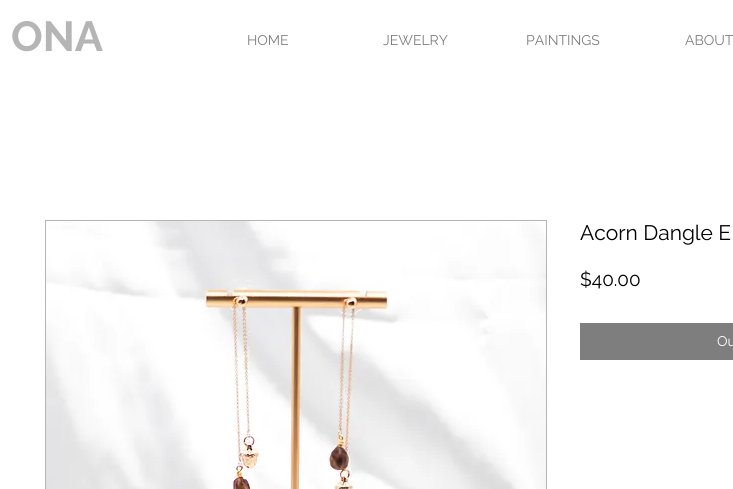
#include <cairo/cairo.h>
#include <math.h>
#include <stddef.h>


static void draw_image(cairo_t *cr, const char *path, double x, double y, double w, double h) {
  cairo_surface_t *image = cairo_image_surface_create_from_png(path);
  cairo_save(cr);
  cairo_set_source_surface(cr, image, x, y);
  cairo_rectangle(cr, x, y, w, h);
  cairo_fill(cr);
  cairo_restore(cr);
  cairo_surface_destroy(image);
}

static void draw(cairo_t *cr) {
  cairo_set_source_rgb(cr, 1, 1, 1);
  cairo_paint(cr);
  cairo_rectangle(cr, 45.5, 220.5, 501, 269);
  cairo_set_source_rgb(cr, 181 / 255.0, 181 / 255.0, 181 / 255.0);
  cairo_set_line_width(cr, 1);
  cairo_stroke(cr);
  draw_image(cr, "images/1.png", 46, 221, 500, 268);
  cairo_set_source_rgb(cr, 127 / 255.0, 126 / 255.0, 126 / 255.0);
  cairo_rectangle(cr, 580, 323, 153, 37);
  cairo_fill(cr);
  cairo_select_font_face(cr, "Raleway", CAIRO_FONT_SLANT_NORMAL, CAIRO_FONT_WEIGHT_BOLD);
  cairo_set_font_size(cr, 42);
  cairo_set_source_rgb(cr, 181 / 255.0, 181 / 255.0, 181 / 255.0);
  cairo_move_to(cr, 11, 51);
  cairo_show_text(cr, "ONA");
  cairo_select_font_face(cr, "Raleway", CAIRO_FONT_SLANT_NORMAL, CAIRO_FONT_WEIGHT_NORMAL);
  cairo_set_font_size(cr, 14);
  cairo_set_source_rgb(cr, 127 / 255.0, 126 / 255.0, 126 / 255.0);
  cairo_move_to(cr, 247, 45);
  cairo_show_text(cr, "HOME");
  cairo_move_to(cr, 383, 45);
  cairo_show_text(cr, "JEWELRY");
  cairo_move_to(cr, 526, 45);
  cairo_show_text(cr, "PAINTINGS");
  cairo_move_to(cr, 685, 45);
  cairo_show_text(cr, "ABOUT");
  cairo_set_font_size(cr, 21);
  cairo_set_source_rgb(cr, 0, 0, 0);
  cairo_move_to(cr, 580, 240);
  cairo_show_text(cr, "Acorn Dangle E");
  cairo_set_font_size(cr, 19);
  cairo_move_to(cr, 580, 286);
  cairo_show_text(cr, "$40.00");
  cairo_set_font_size(cr, 14);
  cairo_set_source_rgb(cr, 1, 1, 1);
  cairo_move_to(cr, 717, 346);
  cairo_show_text(cr, "Ou");
}

int main(void) {
  cairo_surface_t *surface = cairo_image_surface_create(CAIRO_FORMAT_RGB24, 733, 489);
  cairo_t *cr = cairo_create(surface);
  cairo_font_options_t *options = cairo_font_options_create();
  cairo_font_options_set_hint_metrics(options, CAIRO_HINT_METRICS_OFF);
  cairo_font_options_set_hint_style(options, CAIRO_HINT_STYLE_NONE);
  cairo_set_font_options(cr, options);
  cairo_set_miter_limit(cr, 4);
  draw(cr);
  cairo_surface_write_to_png(surface, "out.png");
  cairo_font_options_destroy(options);
  cairo_destroy(cr);
  cairo_surface_destroy(surface);
  return 0;
}
